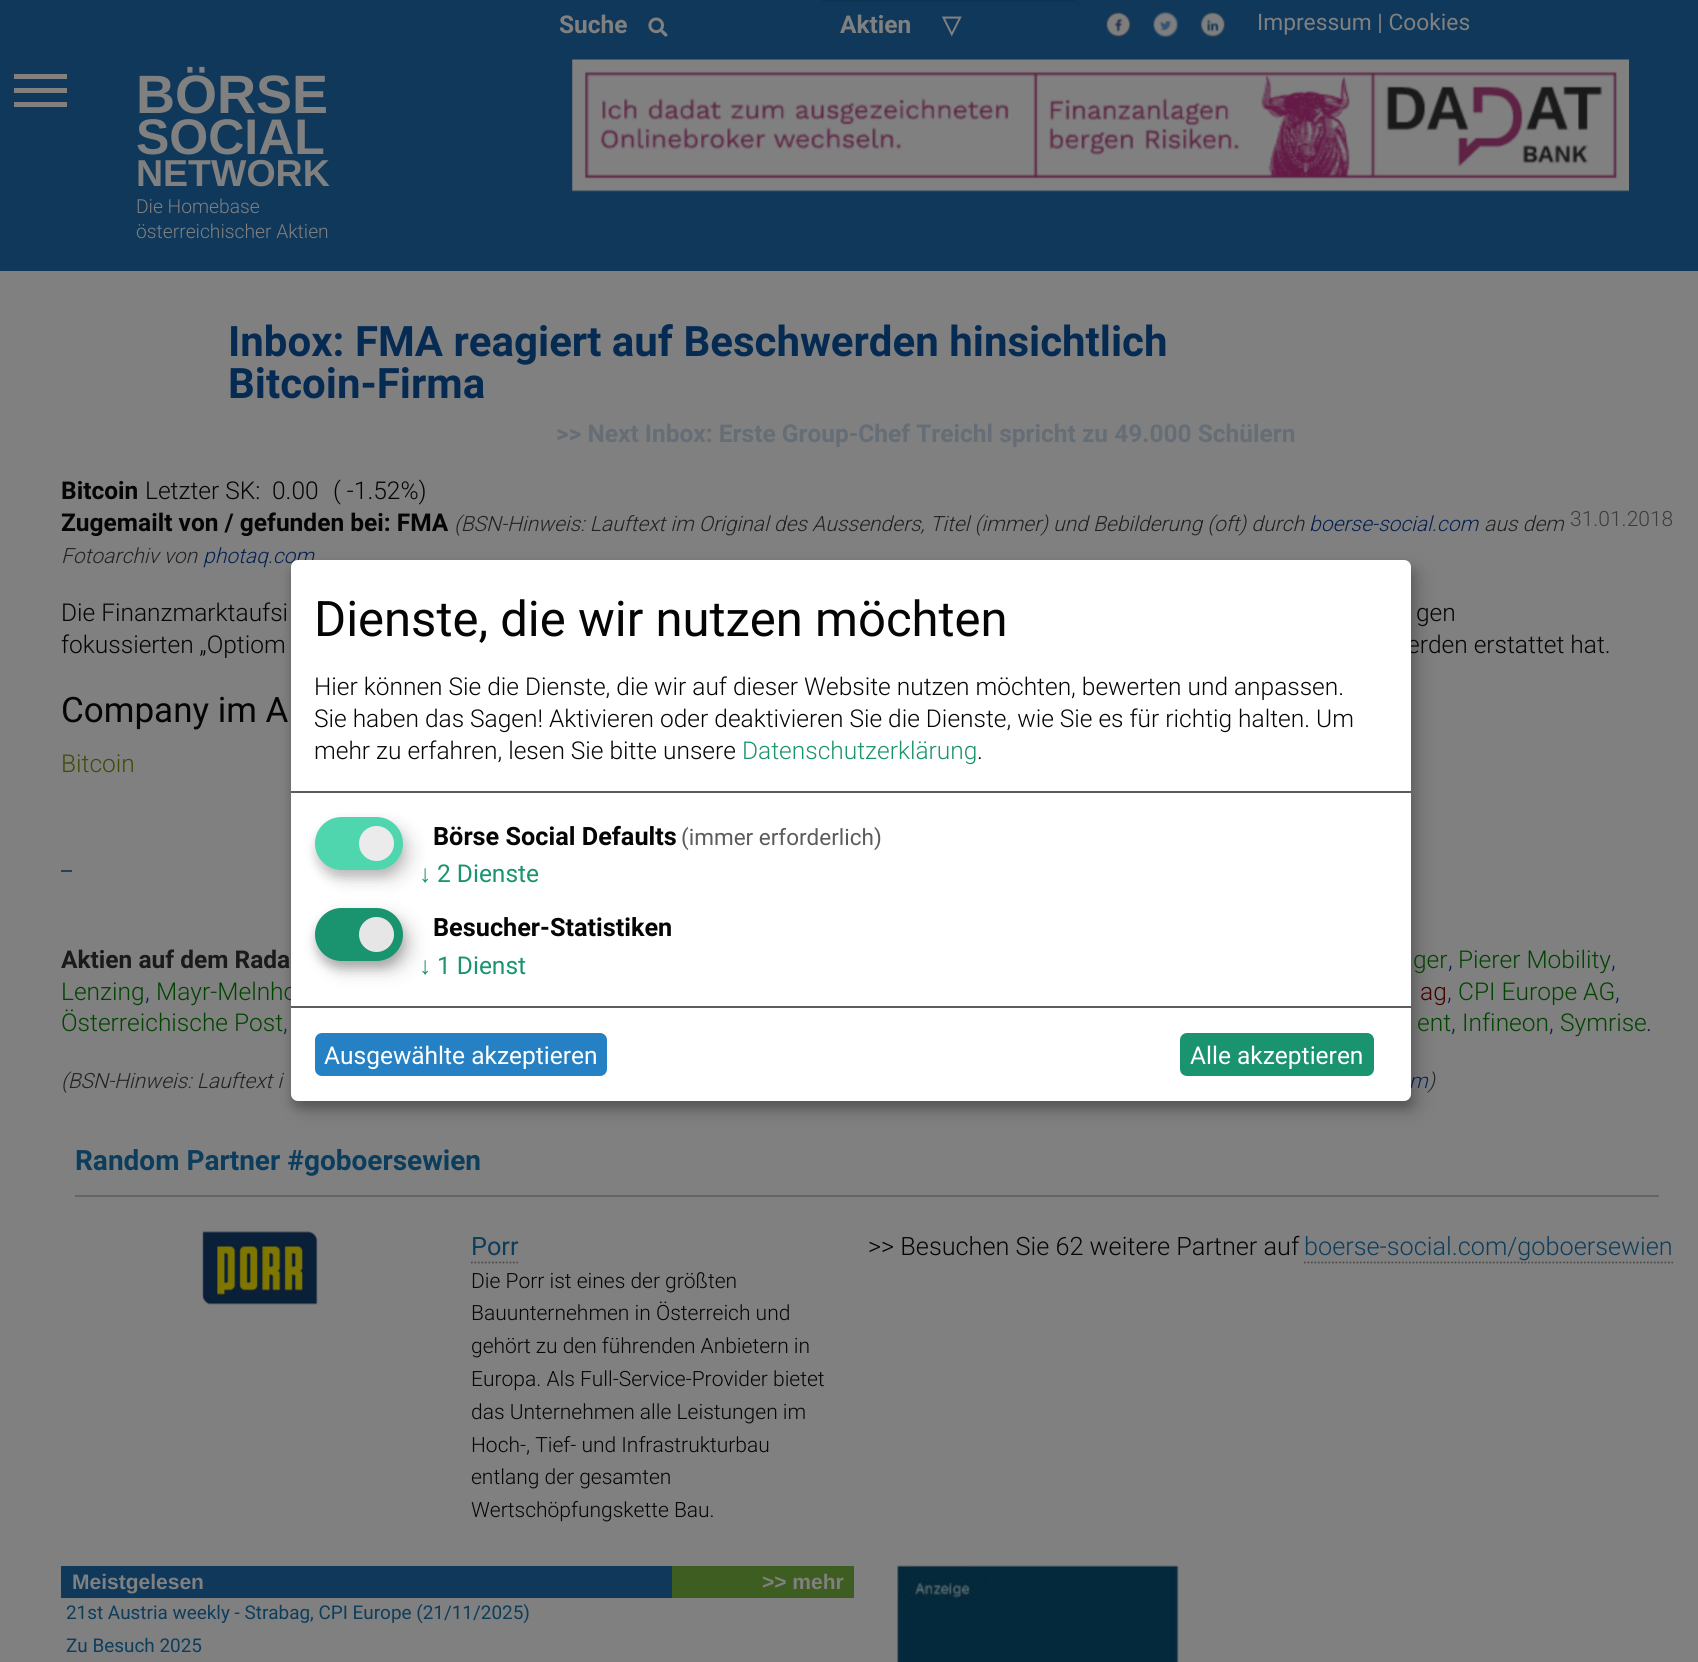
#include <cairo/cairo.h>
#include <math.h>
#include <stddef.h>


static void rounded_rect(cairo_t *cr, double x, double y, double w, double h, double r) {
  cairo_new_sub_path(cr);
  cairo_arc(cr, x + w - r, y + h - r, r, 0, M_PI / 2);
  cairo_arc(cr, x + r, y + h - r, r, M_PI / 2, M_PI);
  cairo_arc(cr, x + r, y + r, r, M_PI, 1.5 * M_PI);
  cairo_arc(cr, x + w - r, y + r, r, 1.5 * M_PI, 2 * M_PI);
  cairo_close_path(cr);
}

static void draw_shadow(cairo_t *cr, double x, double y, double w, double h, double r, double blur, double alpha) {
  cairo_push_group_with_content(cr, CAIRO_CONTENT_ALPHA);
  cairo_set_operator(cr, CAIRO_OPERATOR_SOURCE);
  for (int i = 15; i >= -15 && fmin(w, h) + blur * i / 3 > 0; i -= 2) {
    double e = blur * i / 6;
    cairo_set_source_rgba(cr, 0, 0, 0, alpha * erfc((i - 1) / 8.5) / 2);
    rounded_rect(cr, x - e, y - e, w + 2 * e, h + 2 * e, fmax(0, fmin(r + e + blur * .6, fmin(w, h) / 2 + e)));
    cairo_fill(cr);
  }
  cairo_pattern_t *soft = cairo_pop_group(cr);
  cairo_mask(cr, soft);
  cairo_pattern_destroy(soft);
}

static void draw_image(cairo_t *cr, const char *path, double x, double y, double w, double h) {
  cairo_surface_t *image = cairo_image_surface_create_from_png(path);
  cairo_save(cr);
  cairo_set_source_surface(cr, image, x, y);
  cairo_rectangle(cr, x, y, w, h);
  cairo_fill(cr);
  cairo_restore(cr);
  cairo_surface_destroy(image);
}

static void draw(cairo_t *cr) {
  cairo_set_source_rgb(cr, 128 / 255.0, 128 / 255.0, 128 / 255.0);
  cairo_paint(cr);
  cairo_set_source_rgb(cr, 15 / 255.0, 56 / 255.0, 91 / 255.0);
  cairo_rectangle(cr, 0, 0, 1698, 271);
  cairo_fill(cr);
  draw_image(cr, "images/1.png", 648, 17, 20, 20);
  cairo_set_source_rgb(cr, 14 / 255.0, 52 / 255.0, 84 / 255.0);
  cairo_new_path(cr);
  cairo_move_to(cr, 826, 2);
  cairo_line_to(cr, 1073, 2);
  cairo_curve_to(cr, 1077, 2, 1080, 5, 1080, 9);
  cairo_line_to(cr, 1080, 7);
  cairo_curve_to(cr, 1080, 3, 1077, 0, 1073, 0);
  cairo_line_to(cr, 826, 0);
  cairo_curve_to(cr, 822, 0, 819, 3, 819, 7);
  cairo_line_to(cr, 819, 9);
  cairo_curve_to(cr, 819, 5, 822, 2, 826, 2);
  cairo_close_path(cr);
  cairo_fill(cr);
  draw_image(cr, "images/2.png", 1105, 11, 26, 27);
  draw_image(cr, "images/3.png", 1153, 11, 26, 27);
  draw_image(cr, "images/4.png", 1200, 12, 26, 25);
  cairo_set_source_rgb(cr, 128 / 255.0, 128 / 255.0, 128 / 255.0);
  cairo_rectangle(cr, 14, 102, 53, 5);
  cairo_fill(cr);
  cairo_rectangle(cr, 14, 88, 53, 5);
  cairo_fill(cr);
  cairo_rectangle(cr, 14, 74, 53, 5);
  cairo_fill(cr);
  draw_image(cr, "images/5.png", 572, 59, 1057, 133);
  cairo_set_source_rgb(cr, 40 / 255.0, 61 / 255.0, 96 / 255.0);
  cairo_rectangle(cr, 61, 870, 11, 2);
  cairo_fill(cr);
  cairo_set_source_rgb(cr, 101 / 255.0, 101 / 255.0, 101 / 255.0);
  cairo_rectangle(cr, 75, 1195, 1584, 2);
  cairo_fill(cr);
  draw_image(cr, "images/6.png", 202, 1231, 116, 74);
  cairo_new_path(cr);
  cairo_move_to(cr, 471, 1262.5);
  cairo_line_to(cr, 518, 1262.5);
  cairo_set_source_rgb(cr, 77 / 255.0, 77 / 255.0, 77 / 255.0);
  cairo_set_line_width(cr, 1.8);
  cairo_set_dash(cr, (double[]){1.75, 1.75}, 2, 0);
  cairo_stroke(cr);
  cairo_new_path(cr);
  cairo_move_to(cr, 1304, 1262.5);
  cairo_line_to(cr, 1673, 1262.5);
  cairo_stroke(cr);
  cairo_set_source_rgb(cr, 15 / 255.0, 56 / 255.0, 91 / 255.0);
  cairo_rectangle(cr, 61, 1566, 611, 32);
  cairo_fill(cr);
  cairo_set_source_rgb(cr, 62 / 255.0, 93 / 255.0, 33 / 255.0);
  cairo_rectangle(cr, 672, 1566, 182, 32);
  cairo_fill(cr);
  draw_image(cr, "images/7.png", 897, 1565, 282, 97);
  cairo_set_source_rgb(cr, 0, 0, 0);
  draw_shadow(cr, 299, 569, 1120, 541, 7, 9, 0.19);
  draw_shadow(cr, 291, 567, 1120, 541, 7, 5, 0.2);
  cairo_select_font_face(cr, "Roboto", CAIRO_FONT_SLANT_NORMAL, CAIRO_FONT_WEIGHT_BOLD);
  cairo_set_font_size(cr, 24.5);
  cairo_set_source_rgb(cr, 128 / 255.0, 128 / 255.0, 128 / 255.0);
  cairo_move_to(cr, 559, 33);
  cairo_show_text(cr, "Suche");
  cairo_move_to(cr, 840, 33);
  cairo_show_text(cr, "Aktien");
  cairo_select_font_face(cr, "DejaVu Sans", CAIRO_FONT_SLANT_NORMAL, CAIRO_FONT_WEIGHT_BOLD);
  cairo_move_to(cr, 942, 33);
  cairo_show_text(cr, "▽");
  cairo_select_font_face(cr, "Roboto", CAIRO_FONT_SLANT_NORMAL, CAIRO_FONT_WEIGHT_NORMAL);
  cairo_set_font_size(cr, 22.75);
  cairo_move_to(cr, 1257, 30);
  cairo_show_text(cr, "Impressum | Cookies");
  cairo_select_font_face(cr, "Arimo", CAIRO_FONT_SLANT_NORMAL, CAIRO_FONT_WEIGHT_BOLD);
  cairo_set_font_size(cr, 54);
  cairo_move_to(cr, 136, 113);
  cairo_show_text(cr, "BÖRSE");
  cairo_set_font_size(cr, 50);
  cairo_move_to(cr, 136, 154);
  cairo_show_text(cr, "SOCIAL");
  cairo_set_font_size(cr, 37.5);
  cairo_move_to(cr, 136, 186);
  cairo_show_text(cr, "NETWORK");
  cairo_select_font_face(cr, "Roboto Light", CAIRO_FONT_SLANT_NORMAL, CAIRO_FONT_WEIGHT_NORMAL);
  cairo_set_font_size(cr, 19.25);
  cairo_move_to(cr, 136, 213);
  cairo_show_text(cr, "Die Homebase");
  cairo_move_to(cr, 136, 238);
  cairo_show_text(cr, "österreichischer Aktien");
  cairo_select_font_face(cr, "Roboto", CAIRO_FONT_SLANT_NORMAL, CAIRO_FONT_WEIGHT_BOLD);
  cairo_set_font_size(cr, 42);
  cairo_set_source_rgb(cr, 6 / 255.0, 43 / 255.0, 83 / 255.0);
  cairo_move_to(cr, 228, 356);
  cairo_show_text(cr, "Inbox: FMA reagiert auf Beschwerden hinsichtlich");
  cairo_move_to(cr, 228, 398);
  cairo_show_text(cr, "Bitcoin-Firma");
  cairo_set_font_size(cr, 24.5);
  cairo_set_source_rgb(cr, 101 / 255.0, 109 / 255.0, 118 / 255.0);
  cairo_move_to(cr, 556, 442);
  cairo_show_text(cr, ">> Next Inbox: Erste Group-Chef Treichl spricht zu 49.000 Schülern");
  cairo_set_source_rgb(cr, 5 / 255.0, 5 / 255.0, 5 / 255.0);
  cairo_move_to(cr, 61, 499);
  cairo_show_text(cr, "Bitcoin");
  cairo_select_font_face(cr, "Roboto Light", CAIRO_FONT_SLANT_NORMAL, CAIRO_FONT_WEIGHT_NORMAL);
  cairo_move_to(cr, 145, 499);
  cairo_show_text(cr, "Letzter SK:");
  cairo_move_to(cr, 272, 499);
  cairo_show_text(cr, "0.00");
  cairo_move_to(cr, 333, 499);
  cairo_show_text(cr, "( -1.52%)");
  cairo_select_font_face(cr, "Roboto", CAIRO_FONT_SLANT_NORMAL, CAIRO_FONT_WEIGHT_BOLD);
  cairo_move_to(cr, 61, 531);
  cairo_show_text(cr, "Zugemailt von / gefunden bei: FMA");
  cairo_select_font_face(cr, "Roboto Light", CAIRO_FONT_SLANT_ITALIC, CAIRO_FONT_WEIGHT_NORMAL);
  cairo_set_font_size(cr, 21);
  cairo_set_source_rgb(cr, 34 / 255.0, 34 / 255.0, 34 / 255.0);
  cairo_move_to(cr, 454, 531);
  cairo_show_text(cr, "(BSN-Hinweis: Lauftext im Original des Aussenders, Titel (immer) und Bebilderung (oft) durch");
  cairo_set_source_rgb(cr, 3 / 255.0, 32 / 255.0, 82 / 255.0);
  cairo_move_to(cr, 1309, 531);
  cairo_show_text(cr, "boerse-social.com");
  cairo_set_source_rgb(cr, 34 / 255.0, 34 / 255.0, 34 / 255.0);
  cairo_move_to(cr, 1484, 531);
  cairo_show_text(cr, "aus dem");
  cairo_move_to(cr, 61, 563);
  cairo_show_text(cr, "Fotoarchiv von");
  cairo_set_source_rgb(cr, 3 / 255.0, 32 / 255.0, 82 / 255.0);
  cairo_move_to(cr, 203, 563);
  cairo_show_text(cr, "photaq.com");
  cairo_select_font_face(cr, "Roboto Light", CAIRO_FONT_SLANT_NORMAL, CAIRO_FONT_WEIGHT_NORMAL);
  cairo_set_source_rgb(cr, 60 / 255.0, 60 / 255.0, 60 / 255.0);
  cairo_move_to(cr, 1570, 526);
  cairo_show_text(cr, "31.01.2018");
  cairo_set_font_size(cr, 24.5);
  cairo_set_source_rgb(cr, 5 / 255.0, 5 / 255.0, 5 / 255.0);
  cairo_move_to(cr, 61, 621);
  cairo_show_text(cr, "Die Finanzmarktaufsi");
  cairo_move_to(cr, 1416, 621);
  cairo_show_text(cr, "gen");
  cairo_move_to(cr, 61, 653);
  cairo_show_text(cr, "fokussierten „Optiom");
  cairo_move_to(cr, 1407, 653);
  cairo_show_text(cr, "erden erstattet hat.");
  cairo_select_font_face(cr, "Roboto", CAIRO_FONT_SLANT_NORMAL, CAIRO_FONT_WEIGHT_NORMAL);
  cairo_set_font_size(cr, 35);
  cairo_move_to(cr, 61, 722);
  cairo_show_text(cr, "Company im A");
  cairo_select_font_face(cr, "Roboto Light", CAIRO_FONT_SLANT_NORMAL, CAIRO_FONT_WEIGHT_NORMAL);
  cairo_set_font_size(cr, 24.5);
  cairo_set_source_rgb(cr, 66 / 255.0, 75 / 255.0, 5 / 255.0);
  cairo_move_to(cr, 61, 772);
  cairo_show_text(cr, "Bitcoin");
  cairo_select_font_face(cr, "Roboto", CAIRO_FONT_SLANT_NORMAL, CAIRO_FONT_WEIGHT_BOLD);
  cairo_set_source_rgb(cr, 26 / 255.0, 26 / 255.0, 26 / 255.0);
  cairo_move_to(cr, 61, 968);
  cairo_show_text(cr, "Aktien auf dem Rada");
  cairo_select_font_face(cr, "Roboto Light", CAIRO_FONT_SLANT_NORMAL, CAIRO_FONT_WEIGHT_NORMAL);
  cairo_set_source_rgb(cr, 0, 68 / 255.0, 0);
  cairo_move_to(cr, 1413, 968);
  cairo_show_text(cr, "ger");
  cairo_set_source_rgb(cr, 3 / 255.0, 32 / 255.0, 82 / 255.0);
  cairo_move_to(cr, 1448, 968);
  cairo_show_text(cr, ",");
  cairo_set_source_rgb(cr, 0, 68 / 255.0, 0);
  cairo_move_to(cr, 1458, 968);
  cairo_show_text(cr, "Pierer Mobility");
  cairo_set_source_rgb(cr, 3 / 255.0, 32 / 255.0, 82 / 255.0);
  cairo_move_to(cr, 1611, 968);
  cairo_show_text(cr, ",");
  cairo_set_source_rgb(cr, 0, 68 / 255.0, 0);
  cairo_move_to(cr, 61, 1000);
  cairo_show_text(cr, "Lenzing");
  cairo_set_source_rgb(cr, 3 / 255.0, 32 / 255.0, 82 / 255.0);
  cairo_move_to(cr, 145, 1000);
  cairo_show_text(cr, ",");
  cairo_set_source_rgb(cr, 0, 68 / 255.0, 0);
  cairo_move_to(cr, 156, 1000);
  cairo_show_text(cr, "Mayr-Melnho");
  cairo_set_source_rgb(cr, 68 / 255.0, 0, 0);
  cairo_move_to(cr, 1420, 1000);
  cairo_show_text(cr, "ag");
  cairo_set_source_rgb(cr, 3 / 255.0, 32 / 255.0, 82 / 255.0);
  cairo_move_to(cr, 1447, 1000);
  cairo_show_text(cr, ",");
  cairo_set_source_rgb(cr, 0, 68 / 255.0, 0);
  cairo_move_to(cr, 1458, 1000);
  cairo_show_text(cr, "CPI Europe AG");
  cairo_set_source_rgb(cr, 3 / 255.0, 32 / 255.0, 82 / 255.0);
  cairo_move_to(cr, 1615, 1000);
  cairo_show_text(cr, ",");
  cairo_set_source_rgb(cr, 0, 68 / 255.0, 0);
  cairo_move_to(cr, 61, 1031);
  cairo_show_text(cr, "Österreichische Post");
  cairo_set_source_rgb(cr, 3 / 255.0, 32 / 255.0, 82 / 255.0);
  cairo_move_to(cr, 283, 1031);
  cairo_show_text(cr, ",");
  cairo_set_source_rgb(cr, 0, 68 / 255.0, 0);
  cairo_move_to(cr, 1417, 1031);
  cairo_show_text(cr, "ent");
  cairo_set_source_rgb(cr, 3 / 255.0, 32 / 255.0, 82 / 255.0);
  cairo_move_to(cr, 1451, 1031);
  cairo_show_text(cr, ",");
  cairo_set_source_rgb(cr, 0, 68 / 255.0, 0);
  cairo_move_to(cr, 1462, 1031);
  cairo_show_text(cr, "Infineon");
  cairo_set_source_rgb(cr, 3 / 255.0, 32 / 255.0, 82 / 255.0);
  cairo_move_to(cr, 1549, 1031);
  cairo_show_text(cr, ",");
  cairo_set_source_rgb(cr, 0, 68 / 255.0, 0);
  cairo_move_to(cr, 1560, 1031);
  cairo_show_text(cr, "Symrise");
  cairo_set_source_rgb(cr, 3 / 255.0, 32 / 255.0, 82 / 255.0);
  cairo_move_to(cr, 1646, 1031);
  cairo_show_text(cr, ".");
  cairo_select_font_face(cr, "Roboto Light", CAIRO_FONT_SLANT_ITALIC, CAIRO_FONT_WEIGHT_NORMAL);
  cairo_set_font_size(cr, 21);
  cairo_set_source_rgb(cr, 34 / 255.0, 34 / 255.0, 34 / 255.0);
  cairo_move_to(cr, 61, 1088);
  cairo_show_text(cr, "(BSN-Hinweis: Lauftext i");
  cairo_set_source_rgb(cr, 3 / 255.0, 32 / 255.0, 82 / 255.0);
  cairo_move_to(cr, 1409, 1088);
  cairo_show_text(cr, "m");
  cairo_set_source_rgb(cr, 34 / 255.0, 34 / 255.0, 34 / 255.0);
  cairo_move_to(cr, 1428, 1088);
  cairo_show_text(cr, ")");
  cairo_select_font_face(cr, "Roboto", CAIRO_FONT_SLANT_NORMAL, CAIRO_FONT_WEIGHT_BOLD);
  cairo_set_font_size(cr, 28);
  cairo_set_source_rgb(cr, 12 / 255.0, 61 / 255.0, 93 / 255.0);
  cairo_move_to(cr, 75, 1170);
  cairo_show_text(cr, "Random Partner #goboersewien");
  cairo_select_font_face(cr, "Roboto", CAIRO_FONT_SLANT_NORMAL, CAIRO_FONT_WEIGHT_NORMAL);
  cairo_set_font_size(cr, 25.25);
  cairo_move_to(cr, 471, 1255);
  cairo_show_text(cr, "Porr");
  cairo_select_font_face(cr, "Roboto Light", CAIRO_FONT_SLANT_NORMAL, CAIRO_FONT_WEIGHT_NORMAL);
  cairo_set_font_size(cr, 21);
  cairo_set_source_rgb(cr, 5 / 255.0, 5 / 255.0, 5 / 255.0);
  cairo_move_to(cr, 471, 1288);
  cairo_show_text(cr, "Die Porr ist eines der größten");
  cairo_move_to(cr, 471, 1320);
  cairo_show_text(cr, "Bauunternehmen in Österreich und");
  cairo_move_to(cr, 471, 1353);
  cairo_show_text(cr, "gehört zu den führenden Anbietern in");
  cairo_move_to(cr, 471, 1386);
  cairo_show_text(cr, "Europa. Als Full-Service-Provider bietet");
  cairo_move_to(cr, 471, 1419);
  cairo_show_text(cr, "das Unternehmen alle Leistungen im");
  cairo_move_to(cr, 471, 1452);
  cairo_show_text(cr, "Hoch-, Tief- und Infrastrukturbau");
  cairo_move_to(cr, 471, 1484);
  cairo_show_text(cr, "entlang der gesamten");
  cairo_move_to(cr, 471, 1517);
  cairo_show_text(cr, "Wertschöpfungskette Bau.");
  cairo_set_font_size(cr, 25.25);
  cairo_move_to(cr, 868, 1255);
  cairo_show_text(cr, ">> Besuchen Sie 62 weitere Partner auf");
  cairo_set_source_rgb(cr, 12 / 255.0, 61 / 255.0, 93 / 255.0);
  cairo_move_to(cr, 1304, 1255);
  cairo_show_text(cr, "boerse-social.com/goboersewien");
  cairo_select_font_face(cr, "Arimo", CAIRO_FONT_SLANT_NORMAL, CAIRO_FONT_WEIGHT_BOLD);
  cairo_set_font_size(cr, 21);
  cairo_set_source_rgb(cr, 128 / 255.0, 128 / 255.0, 128 / 255.0);
  cairo_move_to(cr, 72, 1589);
  cairo_show_text(cr, "Meistgelesen");
  cairo_move_to(cr, 762, 1589);
  cairo_show_text(cr, ">> mehr");
  cairo_select_font_face(cr, "Roboto", CAIRO_FONT_SLANT_NORMAL, CAIRO_FONT_WEIGHT_NORMAL);
  cairo_set_font_size(cr, 18.9);
  cairo_set_source_rgb(cr, 12 / 255.0, 61 / 255.0, 93 / 255.0);
  cairo_move_to(cr, 66, 1619);
  cairo_show_text(cr, "21st Austria weekly - Strabag, CPI Europe (21/11/2025)");
  cairo_move_to(cr, 66, 1652);
  cairo_show_text(cr, "Zu Besuch 2025");
  cairo_set_source_rgb(cr, 1, 1, 1);
  rounded_rect(cr, 291, 560, 1120, 541, 7);
  cairo_fill(cr);
  cairo_set_source_rgb(cr, 92 / 255.0, 92 / 255.0, 92 / 255.0);
  cairo_rectangle(cr, 291, 791, 1120, 2);
  cairo_fill(cr);
  cairo_set_font_size(cr, 49);
  cairo_set_source_rgb(cr, 5 / 255.0, 5 / 255.0, 5 / 255.0);
  cairo_move_to(cr, 314, 636);
  cairo_show_text(cr, "Dienste, die wir nutzen möchten");
  cairo_select_font_face(cr, "Roboto Light", CAIRO_FONT_SLANT_NORMAL, CAIRO_FONT_WEIGHT_NORMAL);
  cairo_set_font_size(cr, 24.5);
  cairo_move_to(cr, 314, 695);
  cairo_show_text(cr, "Hier können Sie die Dienste, die wir auf dieser Website nutzen möchten, bewerten und anpassen.");
  cairo_move_to(cr, 314, 727);
  cairo_show_text(cr, "Sie haben das Sagen! Aktivieren oder deaktivieren Sie die Dienste, wie Sie es für richtig halten. Um");
  cairo_move_to(cr, 314, 759);
  cairo_show_text(cr, "mehr zu erfahren, lesen Sie bitte unsere");
  cairo_set_source_rgb(cr, 26 / 255.0, 147 / 255.0, 111 / 255.0);
  cairo_move_to(cr, 742, 759);
  cairo_show_text(cr, "Datenschutzerklärung");
  cairo_set_source_rgb(cr, 5 / 255.0, 5 / 255.0, 5 / 255.0);
  cairo_move_to(cr, 977, 759);
  cairo_show_text(cr, ".");
  cairo_set_source_rgb(cr, 0, 0, 0);
  draw_shadow(cr, 324, 826, 87, 53, 26.5, 9, 0.15);
  cairo_set_source_rgb(cr, 51 / 255.0, 51 / 255.0, 51 / 255.0);
  draw_shadow(cr, 315, 824, 88, 53, 26.5, 5, 0.2);
  cairo_set_source_rgb(cr, 80 / 255.0, 214 / 255.0, 174 / 255.0);
  rounded_rect(cr, 315, 817, 88, 53, 26.5);
  cairo_fill(cr);
  cairo_set_source_rgb(cr, 235 / 255.0, 235 / 255.0, 235 / 255.0);
  cairo_arc(cr, 376.5, 843.5, 17.5, 0, 2 * M_PI);
  cairo_fill(cr);
  cairo_select_font_face(cr, "Roboto", CAIRO_FONT_SLANT_NORMAL, CAIRO_FONT_WEIGHT_BOLD);
  cairo_set_font_size(cr, 25.25);
  cairo_set_source_rgb(cr, 5 / 255.0, 5 / 255.0, 5 / 255.0);
  cairo_move_to(cr, 433, 845);
  cairo_show_text(cr, "Börse Social Defaults");
  cairo_select_font_face(cr, "Roboto", CAIRO_FONT_SLANT_NORMAL, CAIRO_FONT_WEIGHT_NORMAL);
  cairo_set_font_size(cr, 22.5);
  cairo_set_source_rgb(cr, 92 / 255.0, 92 / 255.0, 92 / 255.0);
  cairo_move_to(cr, 681, 845);
  cairo_show_text(cr, "(immer erforderlich)");
  cairo_select_font_face(cr, "Liberation Sans", CAIRO_FONT_SLANT_NORMAL, CAIRO_FONT_WEIGHT_NORMAL);
  cairo_set_font_size(cr, 24.5);
  cairo_set_source_rgb(cr, 26 / 255.0, 147 / 255.0, 111 / 255.0);
  cairo_move_to(cr, 419, 882);
  cairo_show_text(cr, "↓");
  cairo_select_font_face(cr, "Roboto", CAIRO_FONT_SLANT_NORMAL, CAIRO_FONT_WEIGHT_NORMAL);
  cairo_move_to(cr, 437, 882);
  cairo_show_text(cr, "2 Dienste");
  cairo_set_source_rgb(cr, 0, 0, 0);
  draw_shadow(cr, 324, 917, 87, 53, 26.5, 9, 0.19);
  draw_shadow(cr, 315, 915, 88, 53, 26.5, 5, 0.2);
  cairo_set_source_rgb(cr, 26 / 255.0, 147 / 255.0, 111 / 255.0);
  rounded_rect(cr, 315, 908, 88, 53, 26.5);
  cairo_fill(cr);
  cairo_set_source_rgb(cr, 230 / 255.0, 230 / 255.0, 230 / 255.0);
  cairo_arc(cr, 376.5, 934.5, 17.5, 0, 2 * M_PI);
  cairo_fill(cr);
  cairo_select_font_face(cr, "Roboto", CAIRO_FONT_SLANT_NORMAL, CAIRO_FONT_WEIGHT_BOLD);
  cairo_set_font_size(cr, 25.25);
  cairo_set_source_rgb(cr, 5 / 255.0, 5 / 255.0, 5 / 255.0);
  cairo_move_to(cr, 433, 936);
  cairo_show_text(cr, "Besucher-Statistiken");
  cairo_select_font_face(cr, "Liberation Sans", CAIRO_FONT_SLANT_NORMAL, CAIRO_FONT_WEIGHT_NORMAL);
  cairo_set_font_size(cr, 24.5);
  cairo_set_source_rgb(cr, 26 / 255.0, 147 / 255.0, 111 / 255.0);
  cairo_move_to(cr, 419, 974);
  cairo_show_text(cr, "↓");
  cairo_select_font_face(cr, "Roboto", CAIRO_FONT_SLANT_NORMAL, CAIRO_FONT_WEIGHT_NORMAL);
  cairo_move_to(cr, 437, 974);
  cairo_show_text(cr, "1 Dienst");
  cairo_set_source_rgb(cr, 92 / 255.0, 92 / 255.0, 92 / 255.0);
  cairo_rectangle(cr, 291, 1006, 1120, 2);
  cairo_fill(cr);
  cairo_set_source_rgb(cr, 37 / 255.0, 129 / 255.0, 196 / 255.0);
  rounded_rect(cr, 315, 1033, 292, 43, 7);
  cairo_fill(cr);
  cairo_set_source_rgb(cr, 1, 1, 1);
  cairo_move_to(cr, 324, 1064);
  cairo_show_text(cr, "Ausgewählte akzeptieren");
  cairo_set_source_rgb(cr, 26 / 255.0, 147 / 255.0, 111 / 255.0);
  rounded_rect(cr, 1180, 1033, 194, 43, 7);
  cairo_fill(cr);
  cairo_set_source_rgb(cr, 1, 1, 1);
  cairo_move_to(cr, 1190, 1064);
  cairo_show_text(cr, "Alle akzeptieren");
}

int main(void) {
  cairo_surface_t *surface = cairo_image_surface_create(CAIRO_FORMAT_RGB24, 1698, 1662);
  cairo_t *cr = cairo_create(surface);
  cairo_font_options_t *options = cairo_font_options_create();
  cairo_font_options_set_hint_metrics(options, CAIRO_HINT_METRICS_OFF);
  cairo_font_options_set_hint_style(options, CAIRO_HINT_STYLE_NONE);
  cairo_set_font_options(cr, options);
  cairo_set_miter_limit(cr, 4);
  draw(cr);
  cairo_surface_write_to_png(surface, "out.png");
  cairo_font_options_destroy(options);
  cairo_destroy(cr);
  cairo_surface_destroy(surface);
  return 0;
}
